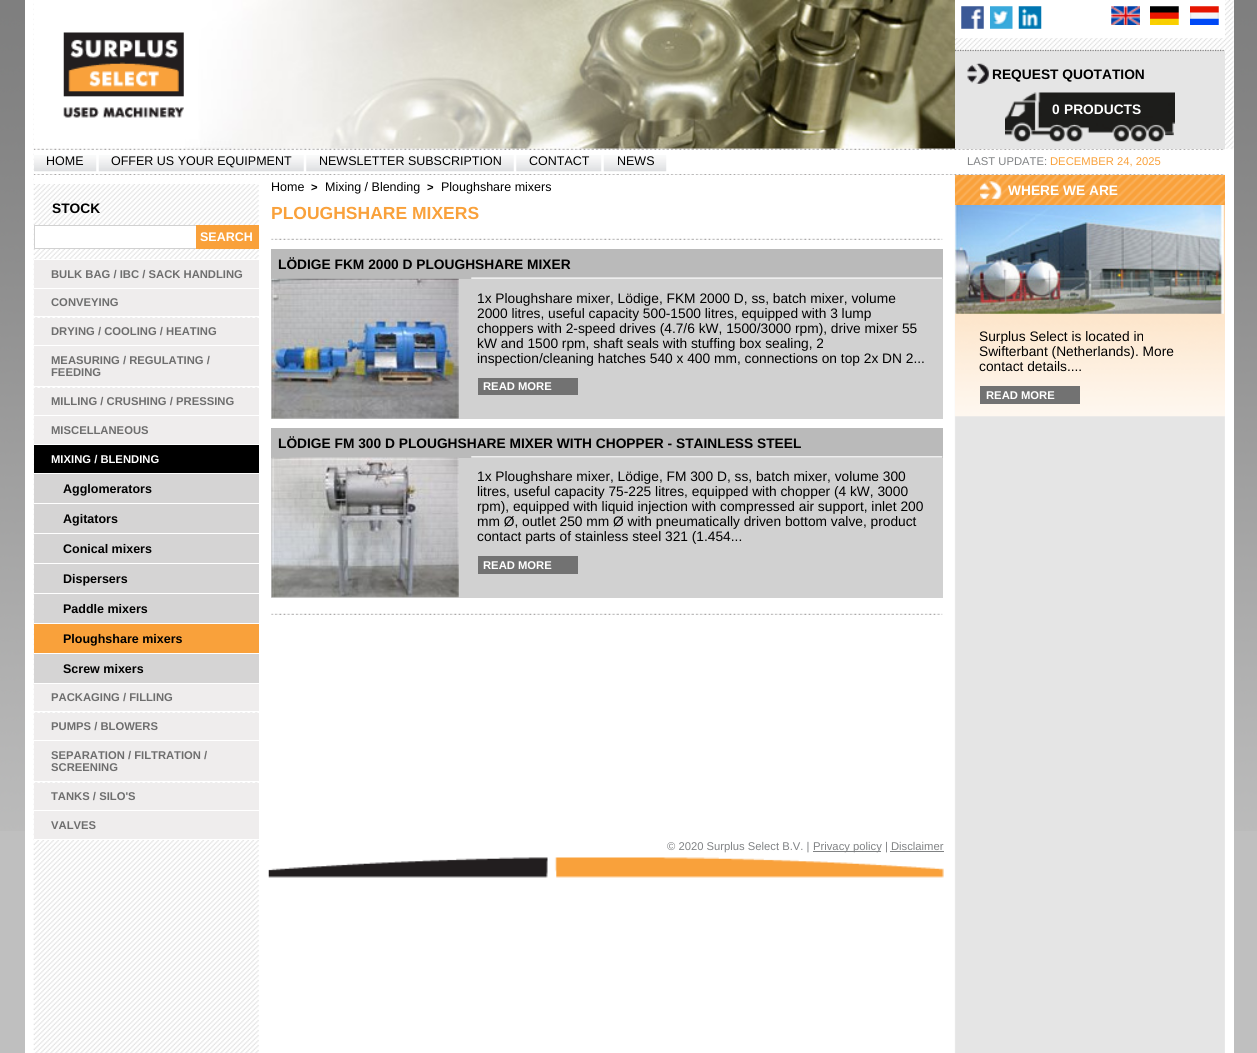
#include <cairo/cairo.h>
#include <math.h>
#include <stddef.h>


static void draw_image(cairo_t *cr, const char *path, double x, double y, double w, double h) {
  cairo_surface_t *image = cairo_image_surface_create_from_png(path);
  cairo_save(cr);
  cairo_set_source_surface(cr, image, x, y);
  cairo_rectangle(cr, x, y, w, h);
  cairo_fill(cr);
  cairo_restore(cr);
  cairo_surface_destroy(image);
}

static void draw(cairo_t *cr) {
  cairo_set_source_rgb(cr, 191 / 255.0, 191 / 255.0, 191 / 255.0);
  cairo_paint(cr);
  draw_image(cr, "images/1.png", 0, 0, 1257, 831);
  cairo_set_source_rgb(cr, 1, 1, 1);
  cairo_rectangle(cr, 25, 0, 1209, 1053);
  cairo_fill(cr);
  draw_image(cr, "images/2.png", 33, 0, 1192, 1053);
  cairo_rectangle(cr, 34, 0, 921, 149);
  cairo_fill(cr);
  draw_image(cr, "images/3.png", 185, 0, 770, 149);
  draw_image(cr, "images/4.png", 63, 32, 121, 86);
  draw_image(cr, "images/14.png", 34, 148, 1191, 2);
  draw_image(cr, "images/5.png", 955, 0, 279, 149);
  cairo_rectangle(cr, 955, 0, 270, 38);
  cairo_fill(cr);
  draw_image(cr, "images/6.png", 961, 6, 23, 23);
  draw_image(cr, "images/7.png", 990, 6, 23, 23);
  draw_image(cr, "images/8.png", 1018, 6, 24, 23);
  draw_image(cr, "images/9.png", 1111, 6, 29, 19);
  draw_image(cr, "images/10.png", 1150, 6, 29, 19);
  draw_image(cr, "images/11.png", 1190, 6, 29, 19);
  cairo_set_source_rgb(cr, 229 / 255.0, 229 / 255.0, 229 / 255.0);
  cairo_rectangle(cr, 955, 50, 270, 99);
  cairo_fill(cr);
  cairo_new_path(cr);
  cairo_move_to(cr, 955, 50.5);
  cairo_line_to(cr, 1225, 50.5);
  cairo_set_source_rgb(cr, 137 / 255.0, 135 / 255.0, 135 / 255.0);
  cairo_set_line_width(cr, 1.2);
  cairo_set_dash(cr, (double[]){1.25, 1.25}, 2, 0);
  cairo_stroke(cr);
  draw_image(cr, "images/12.png", 967, 63, 22, 21);
  draw_image(cr, "images/13.png", 1005, 92, 170, 50);
  cairo_set_source_rgb(cr, 1, 1, 1);
  cairo_rectangle(cr, 34, 150, 1191, 24);
  cairo_fill(cr);
  draw_image(cr, "images/15.png", 34, 155, 63, 17);
  draw_image(cr, "images/16.png", 98, 155, 206, 17);
  draw_image(cr, "images/17.png", 306, 155, 208, 17);
  draw_image(cr, "images/18.png", 516, 155, 86, 17);
  draw_image(cr, "images/19.png", 603, 155, 64, 17);
  draw_image(cr, "images/20.png", 34, 174, 1191, 1);
  cairo_rectangle(cr, 34, 175, 225, 9);
  cairo_fill(cr);
  cairo_rectangle(cr, 35, 226, 161, 22);
  cairo_fill(cr);
  cairo_rectangle(cr, 34.5, 225.5, 216, 23);
  cairo_set_source_rgb(cr, 209 / 255.0, 209 / 255.0, 209 / 255.0);
  cairo_set_line_width(cr, 1);
  cairo_set_dash(cr, NULL, 0, 0);
  cairo_stroke(cr);
  cairo_set_source_rgb(cr, 249 / 255.0, 161 / 255.0, 59 / 255.0);
  cairo_rectangle(cr, 196, 225, 63, 24);
  cairo_fill(cr);
  cairo_set_source_rgb(cr, 1, 1, 1);
  cairo_rectangle(cr, 34, 839, 225, 1);
  cairo_fill(cr);
  cairo_rectangle(cr, 34, 259, 225, 1);
  cairo_fill(cr);
  cairo_set_source_rgb(cr, 239 / 255.0, 237 / 255.0, 237 / 255.0);
  cairo_rectangle(cr, 34, 260, 225, 28);
  cairo_fill(cr);
  cairo_set_source_rgb(cr, 1, 1, 1);
  cairo_rectangle(cr, 34, 288, 225, 1);
  cairo_fill(cr);
  cairo_set_source_rgb(cr, 239 / 255.0, 237 / 255.0, 237 / 255.0);
  cairo_rectangle(cr, 34, 289, 225, 27);
  cairo_fill(cr);
  cairo_set_source_rgb(cr, 1, 1, 1);
  cairo_rectangle(cr, 34, 316, 225, 1);
  cairo_fill(cr);
  cairo_set_source_rgb(cr, 239 / 255.0, 237 / 255.0, 237 / 255.0);
  cairo_rectangle(cr, 34, 318, 225, 27);
  cairo_fill(cr);
  cairo_set_source_rgb(cr, 1, 1, 1);
  cairo_rectangle(cr, 34, 345, 225, 1);
  cairo_fill(cr);
  cairo_set_source_rgb(cr, 239 / 255.0, 237 / 255.0, 237 / 255.0);
  cairo_rectangle(cr, 34, 346, 225, 40);
  cairo_fill(cr);
  cairo_set_source_rgb(cr, 1, 1, 1);
  cairo_rectangle(cr, 34, 386, 225, 1);
  cairo_fill(cr);
  cairo_set_source_rgb(cr, 239 / 255.0, 237 / 255.0, 237 / 255.0);
  cairo_rectangle(cr, 34, 388, 225, 27);
  cairo_fill(cr);
  cairo_set_source_rgb(cr, 1, 1, 1);
  cairo_rectangle(cr, 34, 415, 225, 1);
  cairo_fill(cr);
  cairo_set_source_rgb(cr, 239 / 255.0, 237 / 255.0, 237 / 255.0);
  cairo_rectangle(cr, 34, 416, 225, 28);
  cairo_fill(cr);
  cairo_set_source_rgb(cr, 1, 1, 1);
  cairo_rectangle(cr, 34, 444, 225, 1);
  cairo_fill(cr);
  cairo_set_source_rgb(cr, 0, 0, 0);
  cairo_rectangle(cr, 34, 445, 225, 28);
  cairo_fill(cr);
  cairo_set_source_rgb(cr, 1, 1, 1);
  cairo_rectangle(cr, 34, 473, 225, 1);
  cairo_fill(cr);
  cairo_set_source_rgb(cr, 213 / 255.0, 212 / 255.0, 212 / 255.0);
  cairo_rectangle(cr, 34, 474, 225, 29);
  cairo_fill(cr);
  cairo_set_source_rgb(cr, 1, 1, 1);
  cairo_rectangle(cr, 34, 503, 225, 1);
  cairo_fill(cr);
  cairo_set_source_rgb(cr, 213 / 255.0, 212 / 255.0, 212 / 255.0);
  cairo_rectangle(cr, 34, 504, 225, 29);
  cairo_fill(cr);
  cairo_set_source_rgb(cr, 1, 1, 1);
  cairo_rectangle(cr, 34, 533, 225, 1);
  cairo_fill(cr);
  cairo_set_source_rgb(cr, 213 / 255.0, 212 / 255.0, 212 / 255.0);
  cairo_rectangle(cr, 34, 534, 225, 29);
  cairo_fill(cr);
  cairo_set_source_rgb(cr, 1, 1, 1);
  cairo_rectangle(cr, 34, 563, 225, 1);
  cairo_fill(cr);
  cairo_set_source_rgb(cr, 213 / 255.0, 212 / 255.0, 212 / 255.0);
  cairo_rectangle(cr, 34, 564, 225, 29);
  cairo_fill(cr);
  cairo_set_source_rgb(cr, 1, 1, 1);
  cairo_rectangle(cr, 34, 593, 225, 1);
  cairo_fill(cr);
  cairo_set_source_rgb(cr, 213 / 255.0, 212 / 255.0, 212 / 255.0);
  cairo_rectangle(cr, 34, 594, 225, 29);
  cairo_fill(cr);
  cairo_set_source_rgb(cr, 1, 1, 1);
  cairo_rectangle(cr, 34, 623, 225, 1);
  cairo_fill(cr);
  cairo_set_source_rgb(cr, 249 / 255.0, 161 / 255.0, 59 / 255.0);
  cairo_rectangle(cr, 34, 624, 225, 29);
  cairo_fill(cr);
  cairo_set_source_rgb(cr, 1, 1, 1);
  cairo_rectangle(cr, 34, 653, 225, 1);
  cairo_fill(cr);
  cairo_set_source_rgb(cr, 213 / 255.0, 212 / 255.0, 212 / 255.0);
  cairo_rectangle(cr, 34, 654, 225, 29);
  cairo_fill(cr);
  cairo_set_source_rgb(cr, 1, 1, 1);
  cairo_rectangle(cr, 34, 683, 225, 1);
  cairo_fill(cr);
  cairo_set_source_rgb(cr, 239 / 255.0, 237 / 255.0, 237 / 255.0);
  cairo_rectangle(cr, 34, 684, 225, 27);
  cairo_fill(cr);
  cairo_set_source_rgb(cr, 1, 1, 1);
  cairo_rectangle(cr, 34, 711, 225, 1);
  cairo_fill(cr);
  cairo_set_source_rgb(cr, 239 / 255.0, 237 / 255.0, 237 / 255.0);
  cairo_rectangle(cr, 34, 713, 225, 27);
  cairo_fill(cr);
  cairo_set_source_rgb(cr, 1, 1, 1);
  cairo_rectangle(cr, 34, 740, 225, 1);
  cairo_fill(cr);
  cairo_set_source_rgb(cr, 239 / 255.0, 237 / 255.0, 237 / 255.0);
  cairo_rectangle(cr, 34, 741, 225, 40);
  cairo_fill(cr);
  cairo_set_source_rgb(cr, 1, 1, 1);
  cairo_rectangle(cr, 34, 781, 225, 1);
  cairo_fill(cr);
  cairo_set_source_rgb(cr, 239 / 255.0, 237 / 255.0, 237 / 255.0);
  cairo_rectangle(cr, 34, 783, 225, 27);
  cairo_fill(cr);
  cairo_set_source_rgb(cr, 1, 1, 1);
  cairo_rectangle(cr, 34, 810, 225, 1);
  cairo_fill(cr);
  cairo_set_source_rgb(cr, 239 / 255.0, 237 / 255.0, 237 / 255.0);
  cairo_rectangle(cr, 34, 811, 225, 28);
  cairo_fill(cr);
  draw_image(cr, "images/21.png", 271, 238, 672, 2);
  cairo_set_source_rgb(cr, 209 / 255.0, 209 / 255.0, 209 / 255.0);
  cairo_rectangle(cr, 271, 279, 672, 140);
  cairo_fill(cr);
  cairo_set_source_rgb(cr, 186 / 255.0, 186 / 255.0, 186 / 255.0);
  cairo_rectangle(cr, 271, 249, 672, 30);
  cairo_fill(cr);
  draw_image(cr, "images/22.png", 471, 277, 472, 2);
  draw_image(cr, "images/23.png", 271, 278, 188, 141);
  cairo_set_source_rgb(cr, 114 / 255.0, 114 / 255.0, 114 / 255.0);
  cairo_rectangle(cr, 478, 378, 100, 17);
  cairo_fill(cr);
  cairo_set_source_rgb(cr, 209 / 255.0, 209 / 255.0, 209 / 255.0);
  cairo_rectangle(cr, 271, 458, 672, 140);
  cairo_fill(cr);
  cairo_set_source_rgb(cr, 186 / 255.0, 186 / 255.0, 186 / 255.0);
  cairo_rectangle(cr, 271, 428, 672, 30);
  cairo_fill(cr);
  draw_image(cr, "images/24.png", 471, 456, 472, 2);
  draw_image(cr, "images/25.png", 271, 457, 188, 141);
  cairo_set_source_rgb(cr, 114 / 255.0, 114 / 255.0, 114 / 255.0);
  cairo_rectangle(cr, 478, 556, 100, 18);
  cairo_fill(cr);
  draw_image(cr, "images/26.png", 271, 613, 672, 2);
  draw_image(cr, "images/27.png", 955, 205, 270, 212);
  draw_image(cr, "images/28.png", 955, 175, 270, 30);
  draw_image(cr, "images/29.png", 980, 181, 22, 18);
  draw_image(cr, "images/30.png", 955, 205, 269, 109);
  cairo_rectangle(cr, 980, 386, 100, 18);
  cairo_fill(cr);
  draw_image(cr, "images/31.png", 268, 857, 676, 21);
  cairo_set_source_rgb(cr, 128 / 255.0, 130 / 255.0, 132 / 255.0);
  cairo_rectangle(cr, 813, 851, 68, 1);
  cairo_fill(cr);
  cairo_rectangle(cr, 890, 851, 54, 1);
  cairo_fill(cr);
  cairo_select_font_face(cr, "Liberation Sans", CAIRO_FONT_SLANT_NORMAL, CAIRO_FONT_WEIGHT_BOLD);
  cairo_set_font_size(cr, 13.75);
  cairo_set_source_rgb(cr, 0, 0, 0);
  cairo_move_to(cr, 992, 79);
  cairo_show_text(cr, "REQUEST QUOTATION");
  cairo_set_source_rgb(cr, 1, 1, 1);
  cairo_move_to(cr, 1052, 114);
  cairo_show_text(cr, "0");
  cairo_move_to(cr, 1064, 114);
  cairo_show_text(cr, "PRODUCTS");
  cairo_select_font_face(cr, "Liberation Sans", CAIRO_FONT_SLANT_NORMAL, CAIRO_FONT_WEIGHT_NORMAL);
  cairo_set_font_size(cr, 12.5);
  cairo_set_source_rgb(cr, 0, 0, 0);
  cairo_move_to(cr, 46, 165);
  cairo_show_text(cr, "HOME");
  cairo_move_to(cr, 111, 165);
  cairo_show_text(cr, "OFFER US YOUR EQUIPMENT");
  cairo_move_to(cr, 319, 165);
  cairo_show_text(cr, "NEWSLETTER SUBSCRIPTION");
  cairo_move_to(cr, 529, 165);
  cairo_show_text(cr, "CONTACT");
  cairo_move_to(cr, 617, 165);
  cairo_show_text(cr, "NEWS");
  cairo_set_font_size(cr, 11.25);
  cairo_set_source_rgb(cr, 128 / 255.0, 130 / 255.0, 132 / 255.0);
  cairo_move_to(cr, 967, 165);
  cairo_show_text(cr, "LAST UPDATE:");
  cairo_set_source_rgb(cr, 249 / 255.0, 161 / 255.0, 59 / 255.0);
  cairo_move_to(cr, 1050, 165);
  cairo_show_text(cr, "DECEMBER 24, 2025");
  cairo_select_font_face(cr, "Liberation Sans", CAIRO_FONT_SLANT_NORMAL, CAIRO_FONT_WEIGHT_BOLD);
  cairo_set_font_size(cr, 13.75);
  cairo_set_source_rgb(cr, 0, 0, 0);
  cairo_move_to(cr, 52, 213);
  cairo_show_text(cr, "STOCK");
  cairo_set_font_size(cr, 12.5);
  cairo_set_source_rgb(cr, 1, 1, 1);
  cairo_move_to(cr, 200, 241);
  cairo_show_text(cr, "SEARCH");
  cairo_set_font_size(cr, 11.25);
  cairo_set_source_rgb(cr, 110 / 255.0, 110 / 255.0, 110 / 255.0);
  cairo_move_to(cr, 51, 278);
  cairo_show_text(cr, "BULK BAG / IBC / SACK HANDLING");
  cairo_move_to(cr, 51, 306);
  cairo_show_text(cr, "CONVEYING");
  cairo_move_to(cr, 51, 335);
  cairo_show_text(cr, "DRYING / COOLING / HEATING");
  cairo_move_to(cr, 51, 364);
  cairo_show_text(cr, "MEASURING / REGULATING /");
  cairo_move_to(cr, 51, 376);
  cairo_show_text(cr, "FEEDING");
  cairo_move_to(cr, 51, 405);
  cairo_show_text(cr, "MILLING / CRUSHING / PRESSING");
  cairo_move_to(cr, 51, 434);
  cairo_show_text(cr, "MISCELLANEOUS");
  cairo_set_source_rgb(cr, 1, 1, 1);
  cairo_move_to(cr, 51, 463);
  cairo_show_text(cr, "MIXING / BLENDING");
  cairo_set_font_size(cr, 12.5);
  cairo_set_source_rgb(cr, 0, 0, 0);
  cairo_move_to(cr, 63, 493);
  cairo_show_text(cr, "Agglomerators");
  cairo_move_to(cr, 63, 523);
  cairo_show_text(cr, "Agitators");
  cairo_move_to(cr, 63, 553);
  cairo_show_text(cr, "Conical mixers");
  cairo_move_to(cr, 63, 583);
  cairo_show_text(cr, "Dispersers");
  cairo_move_to(cr, 63, 613);
  cairo_show_text(cr, "Paddle mixers");
  cairo_move_to(cr, 63, 643);
  cairo_show_text(cr, "Ploughshare mixers");
  cairo_move_to(cr, 63, 673);
  cairo_show_text(cr, "Screw mixers");
  cairo_set_font_size(cr, 11.25);
  cairo_set_source_rgb(cr, 110 / 255.0, 110 / 255.0, 110 / 255.0);
  cairo_move_to(cr, 51, 701);
  cairo_show_text(cr, "PACKAGING / FILLING");
  cairo_move_to(cr, 51, 730);
  cairo_show_text(cr, "PUMPS / BLOWERS");
  cairo_move_to(cr, 51, 759);
  cairo_show_text(cr, "SEPARATION / FILTRATION /");
  cairo_move_to(cr, 51, 771);
  cairo_show_text(cr, "SCREENING");
  cairo_move_to(cr, 51, 800);
  cairo_show_text(cr, "TANKS / SILO'S");
  cairo_move_to(cr, 51, 829);
  cairo_show_text(cr, "VALVES");
  cairo_select_font_face(cr, "Liberation Sans", CAIRO_FONT_SLANT_NORMAL, CAIRO_FONT_WEIGHT_NORMAL);
  cairo_set_font_size(cr, 12.5);
  cairo_set_source_rgb(cr, 0, 0, 0);
  cairo_move_to(cr, 271, 191);
  cairo_show_text(cr, "Home");
  cairo_select_font_face(cr, "Liberation Sans", CAIRO_FONT_SLANT_NORMAL, CAIRO_FONT_WEIGHT_BOLD);
  cairo_set_font_size(cr, 11.25);
  cairo_move_to(cr, 311, 191);
  cairo_show_text(cr, ">");
  cairo_select_font_face(cr, "Liberation Sans", CAIRO_FONT_SLANT_NORMAL, CAIRO_FONT_WEIGHT_NORMAL);
  cairo_set_font_size(cr, 12.5);
  cairo_move_to(cr, 325, 191);
  cairo_show_text(cr, "Mixing / Blending");
  cairo_select_font_face(cr, "Liberation Sans", CAIRO_FONT_SLANT_NORMAL, CAIRO_FONT_WEIGHT_BOLD);
  cairo_set_font_size(cr, 11.25);
  cairo_move_to(cr, 427, 191);
  cairo_show_text(cr, ">");
  cairo_select_font_face(cr, "Liberation Sans", CAIRO_FONT_SLANT_NORMAL, CAIRO_FONT_WEIGHT_NORMAL);
  cairo_set_font_size(cr, 12.5);
  cairo_move_to(cr, 441, 191);
  cairo_show_text(cr, "Ploughshare mixers");
  cairo_select_font_face(cr, "Liberation Sans", CAIRO_FONT_SLANT_NORMAL, CAIRO_FONT_WEIGHT_BOLD);
  cairo_set_font_size(cr, 17.5);
  cairo_set_source_rgb(cr, 249 / 255.0, 161 / 255.0, 59 / 255.0);
  cairo_move_to(cr, 271, 219);
  cairo_show_text(cr, "PLOUGHSHARE MIXERS");
  cairo_set_font_size(cr, 13.75);
  cairo_set_source_rgb(cr, 0, 0, 0);
  cairo_move_to(cr, 278, 269);
  cairo_show_text(cr, "LÖDIGE FKM 2000 D PLOUGHSHARE MIXER");
  cairo_select_font_face(cr, "Liberation Sans", CAIRO_FONT_SLANT_NORMAL, CAIRO_FONT_WEIGHT_NORMAL);
  cairo_move_to(cr, 477, 303);
  cairo_show_text(cr, "1x Ploughshare mixer, Lödige, FKM 2000 D, ss, batch mixer, volume");
  cairo_move_to(cr, 477, 318);
  cairo_show_text(cr, "2000 litres, useful capacity 500-1500 litres, equipped with 3 lump");
  cairo_move_to(cr, 477, 333);
  cairo_show_text(cr, "choppers with 2-speed drives (4.7/6 kW, 1500/3000 rpm), drive mixer 55");
  cairo_move_to(cr, 477, 348);
  cairo_show_text(cr, "kW and 1500 rpm, shaft seals with stuffing box sealing, 2");
  cairo_move_to(cr, 477, 363);
  cairo_show_text(cr, "inspection/cleaning hatches 540 x 400 mm, connections on top 2x DN 2...");
  cairo_select_font_face(cr, "Liberation Sans", CAIRO_FONT_SLANT_NORMAL, CAIRO_FONT_WEIGHT_BOLD);
  cairo_set_font_size(cr, 11.25);
  cairo_set_source_rgb(cr, 1, 1, 1);
  cairo_move_to(cr, 483, 390);
  cairo_show_text(cr, "READ MORE");
  cairo_set_font_size(cr, 13.75);
  cairo_set_source_rgb(cr, 0, 0, 0);
  cairo_move_to(cr, 278, 448);
  cairo_show_text(cr, "LÖDIGE FM 300 D PLOUGHSHARE MIXER WITH CHOPPER - STAINLESS STEEL");
  cairo_select_font_face(cr, "Liberation Sans", CAIRO_FONT_SLANT_NORMAL, CAIRO_FONT_WEIGHT_NORMAL);
  cairo_move_to(cr, 477, 481);
  cairo_show_text(cr, "1x Ploughshare mixer, Lödige, FM 300 D, ss, batch mixer, volume 300");
  cairo_move_to(cr, 477, 496);
  cairo_show_text(cr, "litres, useful capacity 75-225 litres, equipped with chopper (4 kW, 3000");
  cairo_move_to(cr, 477, 511);
  cairo_show_text(cr, "rpm), equipped with liquid injection with compressed air support, inlet 200");
  cairo_move_to(cr, 477, 526);
  cairo_show_text(cr, "mm Ø, outlet 250 mm Ø with pneumatically driven bottom valve, product");
  cairo_move_to(cr, 477, 541);
  cairo_show_text(cr, "contact parts of stainless steel 321 (1.454...");
  cairo_select_font_face(cr, "Liberation Sans", CAIRO_FONT_SLANT_NORMAL, CAIRO_FONT_WEIGHT_BOLD);
  cairo_set_font_size(cr, 11.25);
  cairo_set_source_rgb(cr, 1, 1, 1);
  cairo_move_to(cr, 483, 569);
  cairo_show_text(cr, "READ MORE");
  cairo_set_font_size(cr, 13.75);
  cairo_move_to(cr, 1008, 195);
  cairo_show_text(cr, "WHERE WE ARE");
  cairo_select_font_face(cr, "Liberation Sans", CAIRO_FONT_SLANT_NORMAL, CAIRO_FONT_WEIGHT_NORMAL);
  cairo_set_source_rgb(cr, 0, 0, 0);
  cairo_move_to(cr, 979, 341);
  cairo_show_text(cr, "Surplus Select is located in");
  cairo_move_to(cr, 979, 356);
  cairo_show_text(cr, "Swifterbant (Netherlands). More");
  cairo_move_to(cr, 979, 371);
  cairo_show_text(cr, "contact details....");
  cairo_select_font_face(cr, "Liberation Sans", CAIRO_FONT_SLANT_NORMAL, CAIRO_FONT_WEIGHT_BOLD);
  cairo_set_font_size(cr, 11.25);
  cairo_set_source_rgb(cr, 1, 1, 1);
  cairo_move_to(cr, 986, 399);
  cairo_show_text(cr, "READ MORE");
  cairo_select_font_face(cr, "Liberation Sans", CAIRO_FONT_SLANT_NORMAL, CAIRO_FONT_WEIGHT_NORMAL);
  cairo_set_source_rgb(cr, 128 / 255.0, 130 / 255.0, 132 / 255.0);
  cairo_move_to(cr, 667, 850);
  cairo_show_text(cr, "© 2020 Surplus Select B.V. |");
  cairo_move_to(cr, 813, 850);
  cairo_show_text(cr, "Privacy policy | Disclaimer");
}

int main(void) {
  cairo_surface_t *surface = cairo_image_surface_create(CAIRO_FORMAT_RGB24, 1257, 1053);
  cairo_t *cr = cairo_create(surface);
  cairo_font_options_t *options = cairo_font_options_create();
  cairo_font_options_set_hint_metrics(options, CAIRO_HINT_METRICS_OFF);
  cairo_font_options_set_hint_style(options, CAIRO_HINT_STYLE_NONE);
  cairo_set_font_options(cr, options);
  cairo_set_miter_limit(cr, 4);
  draw(cr);
  cairo_surface_write_to_png(surface, "out.png");
  cairo_font_options_destroy(options);
  cairo_destroy(cr);
  cairo_surface_destroy(surface);
  return 0;
}
